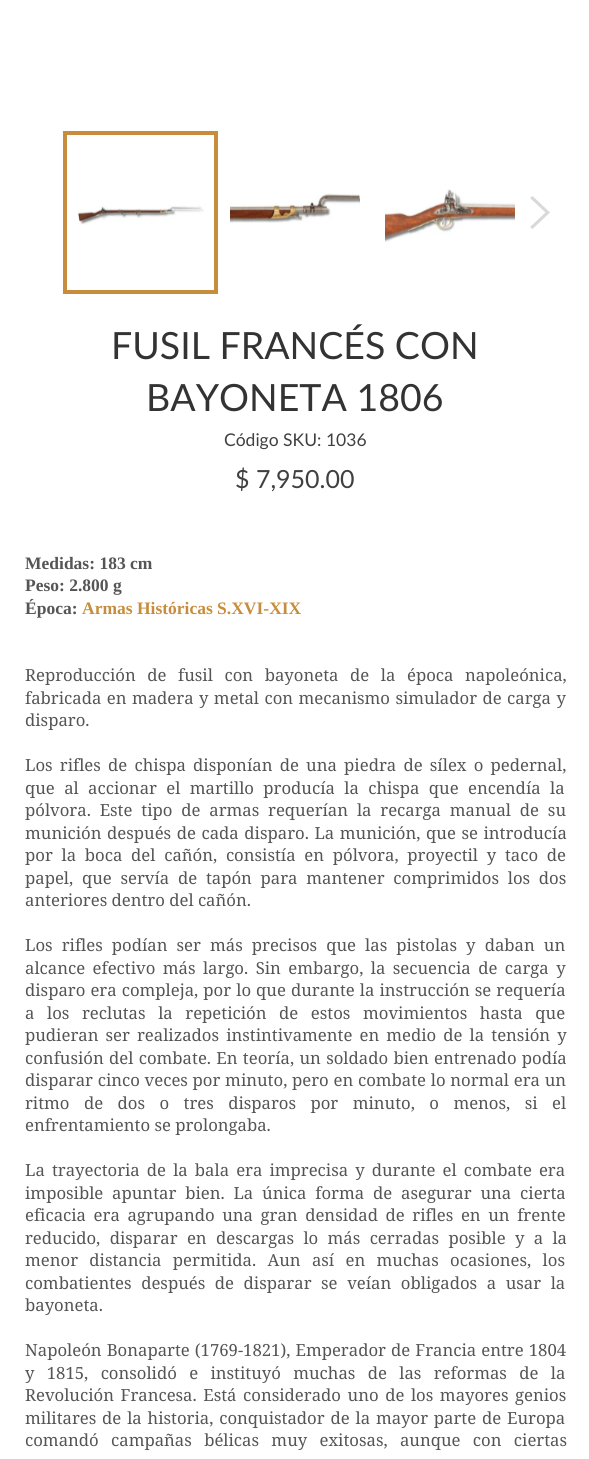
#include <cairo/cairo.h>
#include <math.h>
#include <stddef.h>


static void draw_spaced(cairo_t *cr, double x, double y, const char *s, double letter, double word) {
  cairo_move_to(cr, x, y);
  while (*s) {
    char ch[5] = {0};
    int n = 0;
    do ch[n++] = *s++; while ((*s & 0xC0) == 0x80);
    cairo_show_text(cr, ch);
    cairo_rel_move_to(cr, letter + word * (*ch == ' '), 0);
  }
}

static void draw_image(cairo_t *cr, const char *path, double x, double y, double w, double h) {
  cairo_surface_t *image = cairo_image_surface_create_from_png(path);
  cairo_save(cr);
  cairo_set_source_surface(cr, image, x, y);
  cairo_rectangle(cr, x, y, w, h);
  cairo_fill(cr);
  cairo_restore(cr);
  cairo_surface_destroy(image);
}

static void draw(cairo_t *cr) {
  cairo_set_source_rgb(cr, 1, 1, 1);
  cairo_paint(cr);
  draw_image(cr, "images/1.png", 78, 205, 126, 20);
  cairo_rectangle(cr, 65, 133, 151, 159);
  cairo_set_source_rgb(cr, 199 / 255.0, 141 / 255.0, 60 / 255.0);
  cairo_set_line_width(cr, 4);
  cairo_stroke(cr);
  draw_image(cr, "images/2.png", 230, 193, 130, 30);
  draw_image(cr, "images/3.png", 385, 189, 130, 54);
  cairo_set_source_rgb(cr, 217 / 255.0, 217 / 255.0, 217 / 255.0);
  cairo_new_path(cr);
  cairo_move_to(cr, 530, 198);
  cairo_line_to(cr, 532.5, 196);
  cairo_line_to(cr, 550, 212.5);
  cairo_line_to(cr, 532.5, 229);
  cairo_line_to(cr, 530, 227);
  cairo_line_to(cr, 545.5, 212.5);
  cairo_close_path(cr);
  cairo_fill(cr);
  cairo_select_font_face(cr, "Lato", CAIRO_FONT_SLANT_NORMAL, CAIRO_FONT_WEIGHT_NORMAL);
  cairo_set_font_size(cr, 37.5);
  cairo_set_source_rgb(cr, 51 / 255.0, 51 / 255.0, 51 / 255.0);
  cairo_move_to(cr, 111, 359);
  cairo_show_text(cr, "FUSIL FRANCÉS CON");
  cairo_move_to(cr, 146, 411);
  cairo_show_text(cr, "BAYONETA 1806");
  cairo_set_font_size(cr, 17.5);
  cairo_set_source_rgb(cr, 65 / 255.0, 64 / 255.0, 64 / 255.0);
  cairo_move_to(cr, 224, 446);
  cairo_show_text(cr, "Código SKU: 1036");
  cairo_set_font_size(cr, 25);
  cairo_move_to(cr, 235, 488);
  cairo_show_text(cr, "$ 7,950.00");
  cairo_select_font_face(cr, "Liberation Serif", CAIRO_FONT_SLANT_NORMAL, CAIRO_FONT_WEIGHT_BOLD);
  cairo_set_font_size(cr, 17.5);
  cairo_set_source_rgb(cr, 85 / 255.0, 85 / 255.0, 85 / 255.0);
  cairo_move_to(cr, 25, 569);
  cairo_show_text(cr, "Medidas: 183 cm");
  cairo_move_to(cr, 25, 591);
  cairo_show_text(cr, "Peso: 2.800 g");
  cairo_move_to(cr, 25, 614);
  cairo_show_text(cr, "Época:");
  cairo_set_source_rgb(cr, 199 / 255.0, 141 / 255.0, 60 / 255.0);
  cairo_move_to(cr, 82, 614);
  cairo_show_text(cr, "Armas Históricas S.XVI-XIX");
  cairo_select_font_face(cr, "Noto Serif", CAIRO_FONT_SLANT_NORMAL, CAIRO_FONT_WEIGHT_NORMAL);
  cairo_set_font_size(cr, 16.7);
  cairo_set_source_rgb(cr, 85 / 255.0, 85 / 255.0, 85 / 255.0);
  draw_spaced(cr, 25, 681, "Reproducción de fusil con bayoneta de la época napoleónica,", 0, 7.25);
  draw_spaced(cr, 25, 704, "fabricada en madera y metal con mecanismo simulador de carga y", 0, 1.1);
  cairo_move_to(cr, 25, 726);
  cairo_show_text(cr, "disparo.");
  draw_spaced(cr, 25, 771, "Los rifles de chispa disponían de una piedra de sílex o pedernal,", 0, 2.9);
  draw_spaced(cr, 25, 794, "que al accionar el martillo producía la chispa que encendía la", 0, 5);
  draw_spaced(cr, 25, 816, "pólvora. Este tipo de armas requerían la recarga manual de su", 0, 4.5);
  draw_spaced(cr, 25, 839, "munición después de cada disparo. La munición, que se introducía", 0, 1.25);
  draw_spaced(cr, 25, 861, "por la boca del cañón, consistía en pólvora, proyectil y taco de", 0, 4.4);
  draw_spaced(cr, 25, 884, "papel, que servía de tapón para mantener comprimidos los dos", 0, 4.4);
  cairo_move_to(cr, 25, 906);
  cairo_show_text(cr, "anteriores dentro del cañón.");
  draw_spaced(cr, 25, 951, "Los rifles podían ser más precisos que las pistolas y daban un", 0, 4.75);
  draw_spaced(cr, 25, 974, "alcance efectivo más largo. Sin embargo, la secuencia de carga y", 0, 3.1);
  draw_spaced(cr, 25, 996, "disparo era compleja, por lo que durante la instrucción se requería", 0, 0.75);
  draw_spaced(cr, 25, 1019, "a los reclutas la repetición de estos movimientos hasta que", 0, 8.25);
  draw_spaced(cr, 25, 1041, "pudieran ser realizados instintivamente en medio de la tensión y", 0, 2.75);
  draw_spaced(cr, 25, 1064, "confusión del combate. En teoría, un soldado bien entrenado podía", 0, 1);
  draw_spaced(cr, 25, 1086, "disparar cinco veces por minuto, pero en combate lo normal era un", 0, 0.4);
  draw_spaced(cr, 25, 1109, "ritmo de dos o tres disparos por minuto, o menos, si el", 0, 10.1);
  cairo_move_to(cr, 25, 1131);
  cairo_show_text(cr, "enfrentamiento se prolongaba.");
  draw_spaced(cr, 25, 1176, "La trayectoria de la bala era imprecisa y durante el combate era", 0, 2.75);
  draw_spaced(cr, 25, 1199, "imposible apuntar bien. La única forma de asegurar una cierta", 0, 4.5);
  draw_spaced(cr, 25, 1221, "eficacia era agrupando una gran densidad de rifles en un frente", 0, 3.25);
  draw_spaced(cr, 25, 1244, "reducido, disparar en descargas lo más cerradas posible y a la", 0, 5);
  draw_spaced(cr, 25, 1266, "menor distancia permitida. Aun así en muchas ocasiones, los", 0, 7);
  draw_spaced(cr, 25, 1289, "combatientes después de disparar se veían obligados a usar la", 0, 5.25);
  cairo_move_to(cr, 25, 1311);
  cairo_show_text(cr, "bayoneta.");
  draw_spaced(cr, 25, 1356, "Napoleón Bonaparte (1769-1821), Emperador de Francia entre 1804", 0, 0.75);
  draw_spaced(cr, 25, 1379, "y 1815, consolidó e instituyó muchas de las reformas de la", 0, 8);
  draw_spaced(cr, 25, 1401, "Revolución Francesa. Está considerado uno de los mayores genios", 0, 2.25);
  draw_spaced(cr, 25, 1424, "militares de la historia, conquistador de la mayor parte de Europa", 0, 1.5);
  draw_spaced(cr, 25, 1446, "comandó campañas bélicas muy exitosas, aunque con ciertas", 0, 8);
}

int main(void) {
  cairo_surface_t *surface = cairo_image_surface_create(CAIRO_FORMAT_RGB24, 589, 1459);
  cairo_t *cr = cairo_create(surface);
  cairo_font_options_t *options = cairo_font_options_create();
  cairo_font_options_set_hint_metrics(options, CAIRO_HINT_METRICS_OFF);
  cairo_font_options_set_hint_style(options, CAIRO_HINT_STYLE_NONE);
  cairo_set_font_options(cr, options);
  cairo_set_miter_limit(cr, 4);
  draw(cr);
  cairo_surface_write_to_png(surface, "out.png");
  cairo_font_options_destroy(options);
  cairo_destroy(cr);
  cairo_surface_destroy(surface);
  return 0;
}
